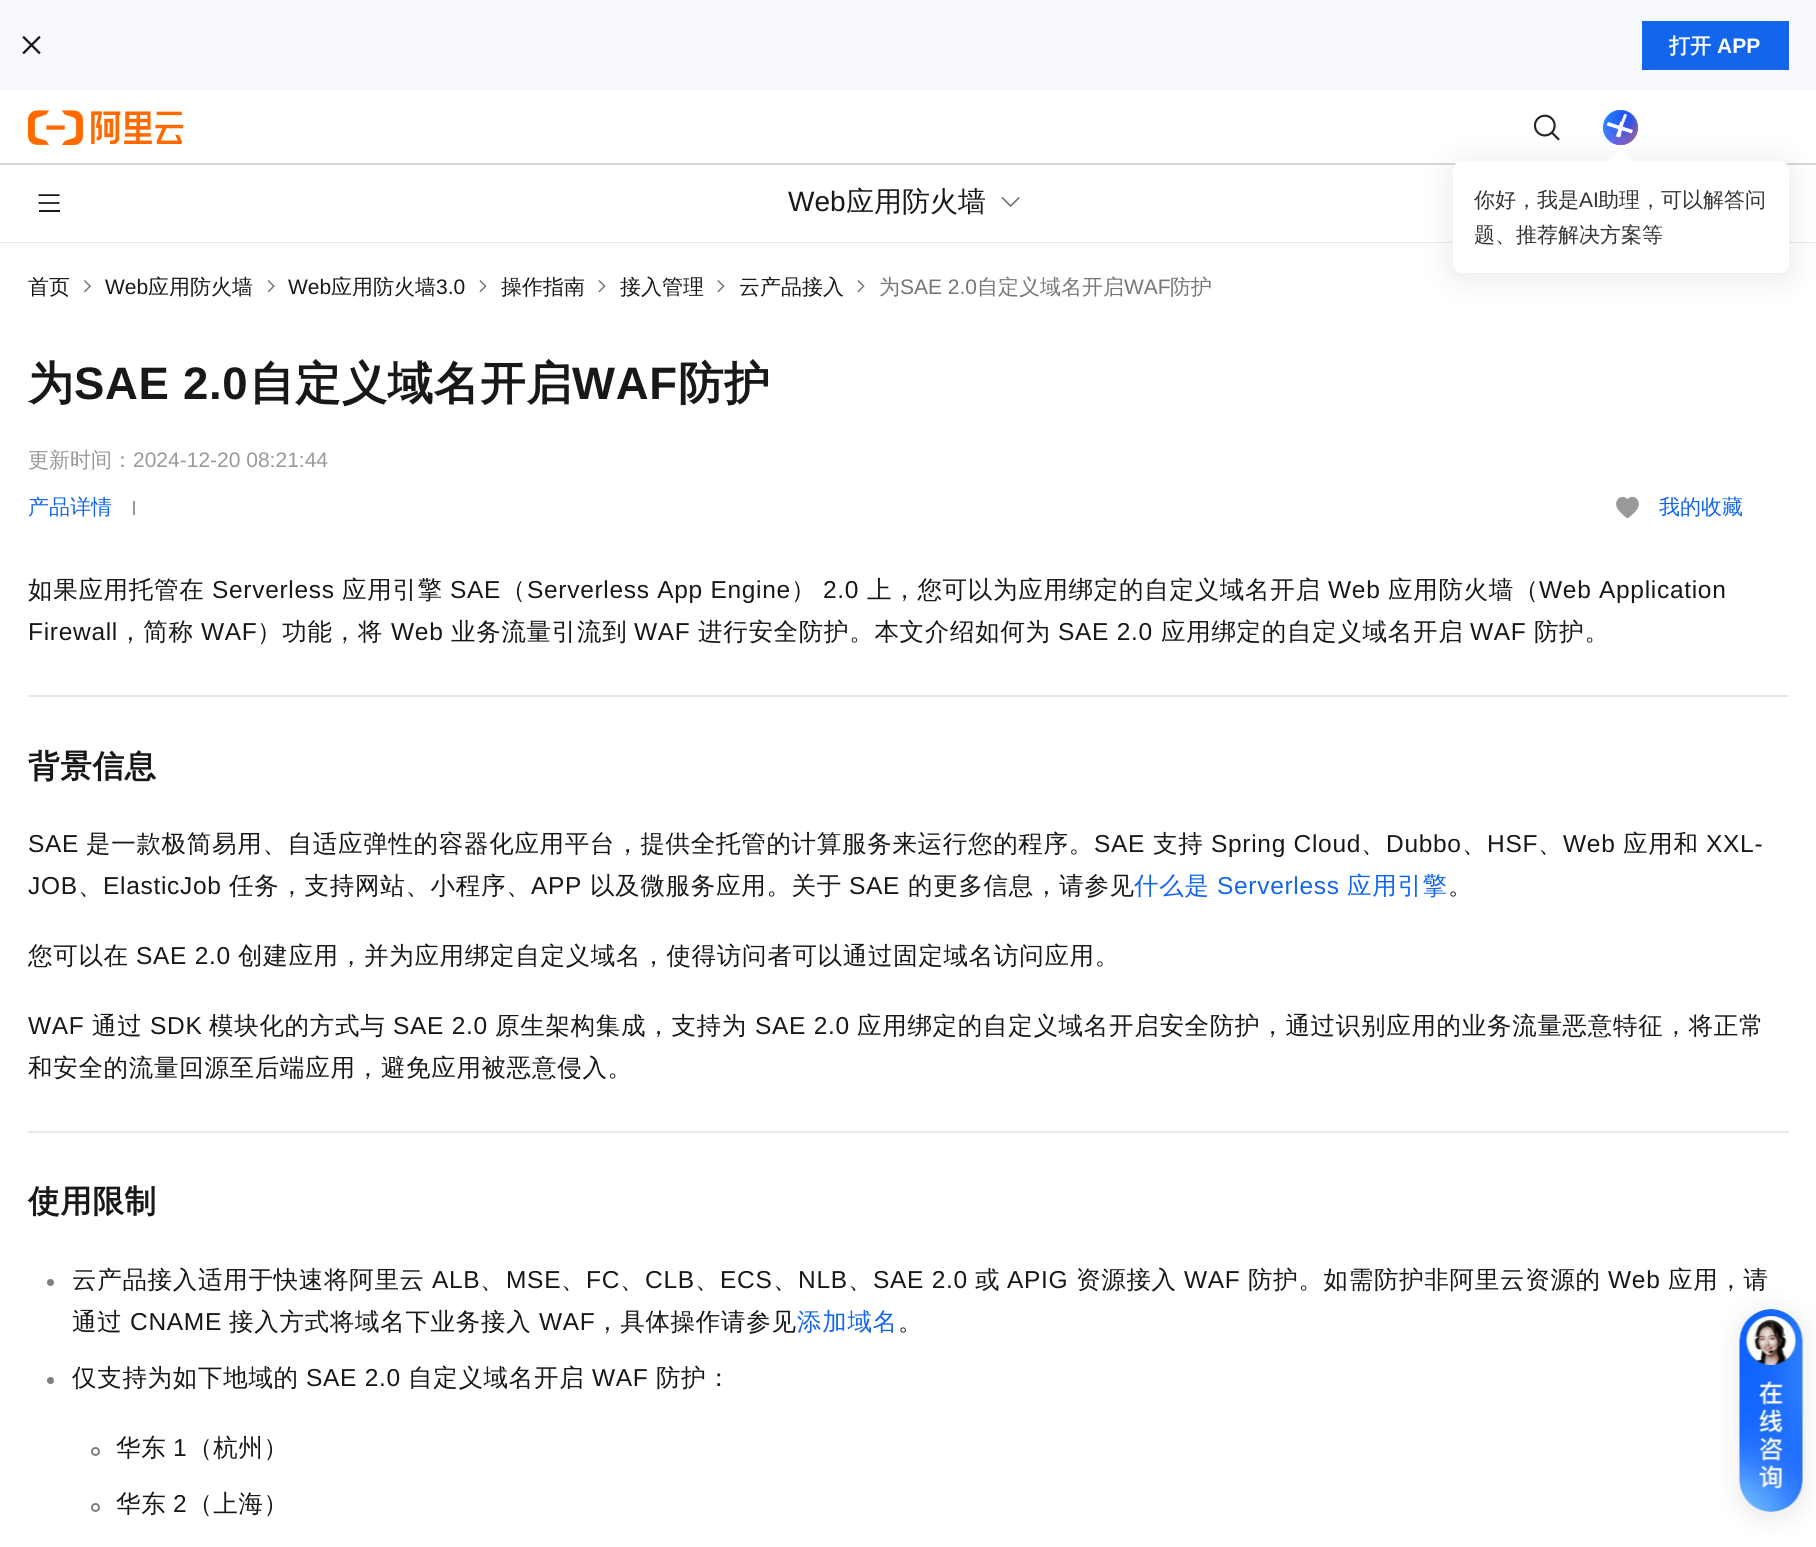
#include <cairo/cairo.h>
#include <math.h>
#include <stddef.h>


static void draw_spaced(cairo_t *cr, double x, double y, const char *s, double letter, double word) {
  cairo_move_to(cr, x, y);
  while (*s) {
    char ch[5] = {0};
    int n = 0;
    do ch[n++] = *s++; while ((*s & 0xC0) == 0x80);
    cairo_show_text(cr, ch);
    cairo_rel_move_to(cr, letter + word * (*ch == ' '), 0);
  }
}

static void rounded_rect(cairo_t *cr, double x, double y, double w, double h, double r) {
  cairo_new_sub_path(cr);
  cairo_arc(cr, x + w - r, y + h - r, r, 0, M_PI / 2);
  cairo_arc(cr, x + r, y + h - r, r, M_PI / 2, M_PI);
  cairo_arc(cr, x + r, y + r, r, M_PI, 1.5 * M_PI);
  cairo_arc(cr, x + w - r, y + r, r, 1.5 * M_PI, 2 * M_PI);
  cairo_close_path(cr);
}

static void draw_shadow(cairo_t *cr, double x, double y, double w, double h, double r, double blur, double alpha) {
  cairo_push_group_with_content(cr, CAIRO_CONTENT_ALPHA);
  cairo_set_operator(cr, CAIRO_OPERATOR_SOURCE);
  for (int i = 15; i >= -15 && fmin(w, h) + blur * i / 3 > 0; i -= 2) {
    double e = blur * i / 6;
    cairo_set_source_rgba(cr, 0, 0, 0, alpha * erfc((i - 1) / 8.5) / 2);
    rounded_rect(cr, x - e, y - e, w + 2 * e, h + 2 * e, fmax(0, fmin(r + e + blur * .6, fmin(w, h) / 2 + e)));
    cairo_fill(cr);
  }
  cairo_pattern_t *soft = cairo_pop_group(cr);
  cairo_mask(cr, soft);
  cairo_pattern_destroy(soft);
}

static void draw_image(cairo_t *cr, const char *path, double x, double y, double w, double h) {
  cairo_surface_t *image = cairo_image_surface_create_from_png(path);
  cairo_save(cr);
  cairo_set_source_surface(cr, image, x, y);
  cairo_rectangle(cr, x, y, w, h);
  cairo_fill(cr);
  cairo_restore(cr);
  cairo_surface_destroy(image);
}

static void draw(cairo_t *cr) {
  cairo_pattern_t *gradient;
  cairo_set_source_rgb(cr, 1, 1, 1);
  cairo_paint(cr);
  cairo_set_source_rgb(cr, 247 / 255.0, 249 / 255.0, 252 / 255.0);
  cairo_rectangle(cr, 0, 0, 1816, 91);
  cairo_fill(cr);
  draw_image(cr, "images/1.png", 22, 36, 19, 19);
  cairo_set_source_rgb(cr, 19 / 255.0, 102 / 255.0, 236 / 255.0);
  cairo_rectangle(cr, 1642, 21, 147, 49);
  cairo_fill(cr);
  cairo_set_source_rgb(cr, 215 / 255.0, 216 / 255.0, 217 / 255.0);
  cairo_rectangle(cr, 0, 163, 1816, 2);
  cairo_fill(cr);
  draw_image(cr, "images/2.png", 28, 110, 156, 35);
  draw_image(cr, "images/3.png", 1533, 114, 27, 27);
  cairo_set_source_rgb(cr, 37 / 255.0, 165 / 255.0, 1);
  cairo_arc(cr, 1620.5, 127.5, 17.5, 0, 2 * M_PI);
  cairo_fill(cr);
  gradient = cairo_pattern_create_radial(1621, 137, 0, 1621, 137, 32);
  cairo_pattern_add_color_stop_rgba(gradient, 0.05, 123 / 255.0, 71 / 255.0, 1, 1);
  cairo_pattern_add_color_stop_rgba(gradient, 0.8, 123 / 255.0, 71 / 255.0, 1, 0);
  cairo_set_source(cr, gradient);
  cairo_pattern_destroy(gradient);
  cairo_arc(cr, 1620.5, 127.5, 17.5, 0, 2 * M_PI);
  cairo_fill(cr);
  gradient = cairo_pattern_create_radial(1629, 128, 0, 1629, 128, 32);
  cairo_pattern_add_color_stop_rgba(gradient, 0.05, 1, 100 / 255.0, 50 / 255.0, 1);
  cairo_pattern_add_color_stop_rgba(gradient, 0.7, 1, 100 / 255.0, 50 / 255.0, 0);
  cairo_set_source(cr, gradient);
  cairo_pattern_destroy(gradient);
  cairo_arc(cr, 1620.5, 127.5, 17.5, 0, 2 * M_PI);
  cairo_fill(cr);
  gradient = cairo_pattern_create_radial(1621, 119, 0, 1621, 119, 32);
  cairo_pattern_add_color_stop_rgba(gradient, 0.05, 21 / 255.0, 72 / 255.0, 1, 1);
  cairo_pattern_add_color_stop_rgba(gradient, 0.6, 21 / 255.0, 72 / 255.0, 1, 0);
  cairo_set_source(cr, gradient);
  cairo_pattern_destroy(gradient);
  cairo_arc(cr, 1620.5, 127.5, 17.5, 0, 2 * M_PI);
  cairo_fill(cr);
  draw_image(cr, "images/4.png", 1603, 110, 35, 35);
  draw_image(cr, "images/5.png", 1606, 113, 27, 25);
  cairo_set_source_rgb(cr, 233 / 255.0, 233 / 255.0, 233 / 255.0);
  cairo_rectangle(cr, 0, 242, 1816, 1);
  cairo_fill(cr);
  cairo_set_source_rgb(cr, 0, 0, 0);
  draw_shadow(cr, 1453, 165, 336, 112, 9, 16, 0.1);
  cairo_set_source_rgb(cr, 1, 1, 1);
  rounded_rect(cr, 1453, 161, 336, 112, 9);
  cairo_fill(cr);
  cairo_new_path(cr);
  cairo_move_to(cr, 1620.5, 149);
  cairo_line_to(cr, 1633, 161);
  cairo_line_to(cr, 1620.5, 173.5);
  cairo_line_to(cr, 1608, 161);
  cairo_close_path(cr);
  cairo_fill(cr);
  draw_image(cr, "images/6.png", 38, 194, 22, 18);
  draw_image(cr, "images/7.png", 1001, 197, 19, 10);
  draw_image(cr, "images/8.png", 84, 280, 7, 13);
  draw_image(cr, "images/9.png", 267, 280, 8, 13);
  draw_image(cr, "images/10.png", 479, 280, 8, 13);
  draw_image(cr, "images/10.png", 598, 280, 8, 13);
  draw_image(cr, "images/10.png", 717, 280, 8, 13);
  draw_image(cr, "images/10.png", 857, 280, 8, 13);
  cairo_set_source_rgb(cr, 153 / 255.0, 153 / 255.0, 153 / 255.0);
  cairo_rectangle(cr, 133, 501, 2, 14);
  cairo_fill(cr);
  draw_image(cr, "images/11.png", 1616, 496, 23, 23);
  cairo_set_source_rgb(cr, 233 / 255.0, 233 / 255.0, 233 / 255.0);
  cairo_rectangle(cr, 28, 695, 1761, 2);
  cairo_fill(cr);
  cairo_rectangle(cr, 28, 1131, 1761, 2);
  cairo_fill(cr);
  cairo_set_source_rgb(cr, 128 / 255.0, 128 / 255.0, 128 / 255.0);
  cairo_arc(cr, 50.5, 1282.5, 3.5, 0, 2 * M_PI);
  cairo_fill(cr);
  cairo_arc(cr, 50.5, 1380.5, 3.5, 0, 2 * M_PI);
  cairo_fill(cr);
  cairo_arc(cr, 95.5, 1451.5, 3.5, 0, 2 * M_PI);
  cairo_stroke(cr);
  cairo_arc(cr, 95.5, 1507.5, 3.5, 0, 2 * M_PI);
  cairo_stroke(cr);
  cairo_set_source_rgb(cr, 0, 0, 0);
  draw_shadow(cr, 1740, 1313, 63, 203, 31.5, 13, 0.1);
  draw_image(cr, "images/12.png", 1739, 1309, 64, 203);
  cairo_select_font_face(cr, "WenQuanYi Zen Hei", CAIRO_FONT_SLANT_NORMAL, CAIRO_FONT_WEIGHT_BOLD);
  cairo_set_font_size(cr, 21);
  cairo_set_source_rgb(cr, 1, 1, 1);
  cairo_move_to(cr, 1669, 53);
  cairo_show_text(cr, "打开");
  cairo_select_font_face(cr, "Liberation Sans", CAIRO_FONT_SLANT_NORMAL, CAIRO_FONT_WEIGHT_BOLD);
  cairo_move_to(cr, 1717, 53);
  cairo_show_text(cr, "APP");
  cairo_select_font_face(cr, "WenQuanYi Zen Hei Medium", CAIRO_FONT_SLANT_NORMAL, CAIRO_FONT_WEIGHT_NORMAL);
  cairo_set_source_rgb(cr, 51 / 255.0, 51 / 255.0, 51 / 255.0);
  cairo_move_to(cr, 1474, 207);
  cairo_show_text(cr, "你好，我是");
  cairo_select_font_face(cr, "Liberation Sans", CAIRO_FONT_SLANT_NORMAL, CAIRO_FONT_WEIGHT_NORMAL);
  cairo_move_to(cr, 1579, 207);
  cairo_show_text(cr, "AI");
  cairo_select_font_face(cr, "WenQuanYi Zen Hei Medium", CAIRO_FONT_SLANT_NORMAL, CAIRO_FONT_WEIGHT_NORMAL);
  cairo_move_to(cr, 1598, 207);
  cairo_show_text(cr, "助理，可以解答问");
  cairo_move_to(cr, 1474, 242);
  cairo_show_text(cr, "题、推荐解决方案等");
  cairo_select_font_face(cr, "Liberation Sans", CAIRO_FONT_SLANT_NORMAL, CAIRO_FONT_WEIGHT_NORMAL);
  cairo_set_font_size(cr, 28);
  cairo_set_source_rgb(cr, 24 / 255.0, 24 / 255.0, 24 / 255.0);
  cairo_move_to(cr, 788, 211);
  cairo_show_text(cr, "Web");
  cairo_select_font_face(cr, "WenQuanYi Zen Hei Medium", CAIRO_FONT_SLANT_NORMAL, CAIRO_FONT_WEIGHT_NORMAL);
  cairo_move_to(cr, 846, 211);
  cairo_show_text(cr, "应用防火墙");
  cairo_set_font_size(cr, 21);
  cairo_move_to(cr, 28, 294);
  cairo_show_text(cr, "首页");
  cairo_select_font_face(cr, "Liberation Sans", CAIRO_FONT_SLANT_NORMAL, CAIRO_FONT_WEIGHT_NORMAL);
  cairo_move_to(cr, 105, 294);
  cairo_show_text(cr, "Web");
  cairo_select_font_face(cr, "WenQuanYi Zen Hei Medium", CAIRO_FONT_SLANT_NORMAL, CAIRO_FONT_WEIGHT_NORMAL);
  cairo_move_to(cr, 148, 294);
  cairo_show_text(cr, "应用防火墙");
  cairo_select_font_face(cr, "Liberation Sans", CAIRO_FONT_SLANT_NORMAL, CAIRO_FONT_WEIGHT_NORMAL);
  cairo_move_to(cr, 288, 294);
  cairo_show_text(cr, "Web");
  cairo_select_font_face(cr, "WenQuanYi Zen Hei Medium", CAIRO_FONT_SLANT_NORMAL, CAIRO_FONT_WEIGHT_NORMAL);
  cairo_move_to(cr, 331, 294);
  cairo_show_text(cr, "应用防火墙");
  cairo_select_font_face(cr, "Liberation Sans", CAIRO_FONT_SLANT_NORMAL, CAIRO_FONT_WEIGHT_NORMAL);
  cairo_move_to(cr, 436, 294);
  cairo_show_text(cr, "3.0");
  cairo_select_font_face(cr, "WenQuanYi Zen Hei Medium", CAIRO_FONT_SLANT_NORMAL, CAIRO_FONT_WEIGHT_NORMAL);
  cairo_move_to(cr, 501, 294);
  cairo_show_text(cr, "操作指南");
  cairo_move_to(cr, 620, 294);
  cairo_show_text(cr, "接入管理");
  cairo_move_to(cr, 739, 294);
  cairo_show_text(cr, "云产品接入");
  cairo_set_source_rgb(cr, 115 / 255.0, 119 / 255.0, 122 / 255.0);
  cairo_move_to(cr, 879, 294);
  cairo_show_text(cr, "为");
  cairo_select_font_face(cr, "Liberation Sans", CAIRO_FONT_SLANT_NORMAL, CAIRO_FONT_WEIGHT_NORMAL);
  cairo_move_to(cr, 900, 294);
  cairo_show_text(cr, "SAE 2.0");
  cairo_select_font_face(cr, "WenQuanYi Zen Hei Medium", CAIRO_FONT_SLANT_NORMAL, CAIRO_FONT_WEIGHT_NORMAL);
  cairo_move_to(cr, 977, 294);
  cairo_show_text(cr, "自定义域名开启");
  cairo_select_font_face(cr, "Liberation Sans", CAIRO_FONT_SLANT_NORMAL, CAIRO_FONT_WEIGHT_NORMAL);
  cairo_move_to(cr, 1124, 294);
  cairo_show_text(cr, "WAF");
  cairo_select_font_face(cr, "WenQuanYi Zen Hei Medium", CAIRO_FONT_SLANT_NORMAL, CAIRO_FONT_WEIGHT_NORMAL);
  cairo_move_to(cr, 1170, 294);
  cairo_show_text(cr, "防护");
  cairo_select_font_face(cr, "WenQuanYi Zen Hei", CAIRO_FONT_SLANT_NORMAL, CAIRO_FONT_WEIGHT_BOLD);
  cairo_set_font_size(cr, 45.5);
  cairo_set_source_rgb(cr, 24 / 255.0, 24 / 255.0, 24 / 255.0);
  draw_spaced(cr, 28, 399, "为", 0.7, 0);
  cairo_select_font_face(cr, "Liberation Sans", CAIRO_FONT_SLANT_NORMAL, CAIRO_FONT_WEIGHT_BOLD);
  draw_spaced(cr, 74, 399, "SAE 2.0", 0.7, 0);
  cairo_select_font_face(cr, "WenQuanYi Zen Hei", CAIRO_FONT_SLANT_NORMAL, CAIRO_FONT_WEIGHT_BOLD);
  draw_spaced(cr, 249, 399, "自定义域名开启", 0.7, 0);
  cairo_select_font_face(cr, "Liberation Sans", CAIRO_FONT_SLANT_NORMAL, CAIRO_FONT_WEIGHT_BOLD);
  draw_spaced(cr, 572, 399, "WAF", 0.7, 0);
  cairo_select_font_face(cr, "WenQuanYi Zen Hei", CAIRO_FONT_SLANT_NORMAL, CAIRO_FONT_WEIGHT_BOLD);
  draw_spaced(cr, 678, 399, "防护", 0.7, 0);
  cairo_select_font_face(cr, "WenQuanYi Zen Hei Medium", CAIRO_FONT_SLANT_NORMAL, CAIRO_FONT_WEIGHT_NORMAL);
  cairo_set_font_size(cr, 21);
  cairo_set_source_rgb(cr, 153 / 255.0, 153 / 255.0, 153 / 255.0);
  cairo_move_to(cr, 28, 467);
  cairo_show_text(cr, "更新时间：");
  cairo_select_font_face(cr, "Liberation Sans", CAIRO_FONT_SLANT_NORMAL, CAIRO_FONT_WEIGHT_NORMAL);
  cairo_move_to(cr, 133, 467);
  cairo_show_text(cr, "2024-12-20 08:21:44");
  cairo_select_font_face(cr, "WenQuanYi Zen Hei Medium", CAIRO_FONT_SLANT_NORMAL, CAIRO_FONT_WEIGHT_NORMAL);
  cairo_set_source_rgb(cr, 19 / 255.0, 102 / 255.0, 236 / 255.0);
  cairo_move_to(cr, 28, 514);
  cairo_show_text(cr, "产品详情");
  cairo_move_to(cr, 1659, 514);
  cairo_show_text(cr, "我的收藏");
  cairo_set_font_size(cr, 24.5);
  cairo_set_source_rgb(cr, 24 / 255.0, 24 / 255.0, 24 / 255.0);
  draw_spaced(cr, 28, 598, "如果应用托管在", 0.7, 0);
  cairo_select_font_face(cr, "Liberation Sans", CAIRO_FONT_SLANT_NORMAL, CAIRO_FONT_WEIGHT_NORMAL);
  draw_spaced(cr, 212, 598, "Serverless", 0.7, 0);
  cairo_select_font_face(cr, "WenQuanYi Zen Hei Medium", CAIRO_FONT_SLANT_NORMAL, CAIRO_FONT_WEIGHT_NORMAL);
  draw_spaced(cr, 342, 598, "应用引擎", 0.7, 0);
  cairo_select_font_face(cr, "Liberation Sans", CAIRO_FONT_SLANT_NORMAL, CAIRO_FONT_WEIGHT_NORMAL);
  draw_spaced(cr, 450, 598, "SAE", 0.7, 0);
  cairo_select_font_face(cr, "WenQuanYi Zen Hei Medium", CAIRO_FONT_SLANT_NORMAL, CAIRO_FONT_WEIGHT_NORMAL);
  draw_spaced(cr, 501, 598, "（", 0.7, 0);
  cairo_select_font_face(cr, "Liberation Sans", CAIRO_FONT_SLANT_NORMAL, CAIRO_FONT_WEIGHT_NORMAL);
  draw_spaced(cr, 527, 598, "Serverless App Engine", 0.7, 0);
  cairo_select_font_face(cr, "WenQuanYi Zen Hei Medium", CAIRO_FONT_SLANT_NORMAL, CAIRO_FONT_WEIGHT_NORMAL);
  draw_spaced(cr, 791, 598, "）", 0.7, 0);
  cairo_select_font_face(cr, "Liberation Sans", CAIRO_FONT_SLANT_NORMAL, CAIRO_FONT_WEIGHT_NORMAL);
  draw_spaced(cr, 823, 598, "2.0", 0.7, 0);
  cairo_select_font_face(cr, "WenQuanYi Zen Hei Medium", CAIRO_FONT_SLANT_NORMAL, CAIRO_FONT_WEIGHT_NORMAL);
  draw_spaced(cr, 867, 598, "上，您可以为应用绑定的自定义域名开启", 0.7, 0);
  cairo_select_font_face(cr, "Liberation Sans", CAIRO_FONT_SLANT_NORMAL, CAIRO_FONT_WEIGHT_NORMAL);
  draw_spaced(cr, 1328, 598, "Web", 0.7, 0);
  cairo_select_font_face(cr, "WenQuanYi Zen Hei Medium", CAIRO_FONT_SLANT_NORMAL, CAIRO_FONT_WEIGHT_NORMAL);
  draw_spaced(cr, 1388, 598, "应用防火墙（", 0.7, 0);
  cairo_select_font_face(cr, "Liberation Sans", CAIRO_FONT_SLANT_NORMAL, CAIRO_FONT_WEIGHT_NORMAL);
  draw_spaced(cr, 1539, 598, "Web Application", 0.7, 0);
  draw_spaced(cr, 28, 640, "Firewall", 0.7, 0);
  cairo_select_font_face(cr, "WenQuanYi Zen Hei Medium", CAIRO_FONT_SLANT_NORMAL, CAIRO_FONT_WEIGHT_NORMAL);
  draw_spaced(cr, 118, 640, "，简称", 0.7, 0);
  cairo_select_font_face(cr, "Liberation Sans", CAIRO_FONT_SLANT_NORMAL, CAIRO_FONT_WEIGHT_NORMAL);
  draw_spaced(cr, 201, 640, "WAF", 0.7, 0);
  cairo_select_font_face(cr, "WenQuanYi Zen Hei Medium", CAIRO_FONT_SLANT_NORMAL, CAIRO_FONT_WEIGHT_NORMAL);
  draw_spaced(cr, 257, 640, "）功能，将", 0.7, 0);
  cairo_select_font_face(cr, "Liberation Sans", CAIRO_FONT_SLANT_NORMAL, CAIRO_FONT_WEIGHT_NORMAL);
  draw_spaced(cr, 391, 640, "Web", 0.7, 0);
  cairo_select_font_face(cr, "WenQuanYi Zen Hei Medium", CAIRO_FONT_SLANT_NORMAL, CAIRO_FONT_WEIGHT_NORMAL);
  draw_spaced(cr, 451, 640, "业务流量引流到", 0.7, 0);
  cairo_select_font_face(cr, "Liberation Sans", CAIRO_FONT_SLANT_NORMAL, CAIRO_FONT_WEIGHT_NORMAL);
  draw_spaced(cr, 634, 640, "WAF", 0.7, 0);
  cairo_select_font_face(cr, "WenQuanYi Zen Hei Medium", CAIRO_FONT_SLANT_NORMAL, CAIRO_FONT_WEIGHT_NORMAL);
  draw_spaced(cr, 698, 640, "进行安全防护。本文介绍如何为", 0.7, 0);
  cairo_select_font_face(cr, "Liberation Sans", CAIRO_FONT_SLANT_NORMAL, CAIRO_FONT_WEIGHT_NORMAL);
  draw_spaced(cr, 1058, 640, "SAE 2.0", 0.7, 0);
  cairo_select_font_face(cr, "WenQuanYi Zen Hei Medium", CAIRO_FONT_SLANT_NORMAL, CAIRO_FONT_WEIGHT_NORMAL);
  draw_spaced(cr, 1161, 640, "应用绑定的自定义域名开启", 0.7, 0);
  cairo_select_font_face(cr, "Liberation Sans", CAIRO_FONT_SLANT_NORMAL, CAIRO_FONT_WEIGHT_NORMAL);
  draw_spaced(cr, 1470, 640, "WAF", 0.7, 0);
  cairo_select_font_face(cr, "WenQuanYi Zen Hei Medium", CAIRO_FONT_SLANT_NORMAL, CAIRO_FONT_WEIGHT_NORMAL);
  draw_spaced(cr, 1534, 640, "防护。", 0.7, 0);
  cairo_select_font_face(cr, "WenQuanYi Zen Hei", CAIRO_FONT_SLANT_NORMAL, CAIRO_FONT_WEIGHT_BOLD);
  cairo_set_font_size(cr, 31.5);
  draw_spaced(cr, 28, 777, "背景信息", 0.7, 0);
  cairo_select_font_face(cr, "Liberation Sans", CAIRO_FONT_SLANT_NORMAL, CAIRO_FONT_WEIGHT_NORMAL);
  cairo_set_font_size(cr, 24.5);
  draw_spaced(cr, 28, 852, "SAE", 0.7, 0);
  cairo_select_font_face(cr, "WenQuanYi Zen Hei Medium", CAIRO_FONT_SLANT_NORMAL, CAIRO_FONT_WEIGHT_NORMAL);
  draw_spaced(cr, 86, 852, "是一款极简易用、自适应弹性的容器化应用平台，提供全托管的计算服务来运行您的程序。", 0.7, 0);
  cairo_select_font_face(cr, "Liberation Sans", CAIRO_FONT_SLANT_NORMAL, CAIRO_FONT_WEIGHT_NORMAL);
  draw_spaced(cr, 1094, 852, "SAE", 0.7, 0);
  cairo_select_font_face(cr, "WenQuanYi Zen Hei Medium", CAIRO_FONT_SLANT_NORMAL, CAIRO_FONT_WEIGHT_NORMAL);
  draw_spaced(cr, 1153, 852, "支持", 0.7, 0);
  cairo_select_font_face(cr, "Liberation Sans", CAIRO_FONT_SLANT_NORMAL, CAIRO_FONT_WEIGHT_NORMAL);
  draw_spaced(cr, 1211, 852, "Spring Cloud", 0.7, 0);
  draw_spaced(cr, 1386, 852, "Dubbo", 0.7, 0);
  draw_spaced(cr, 1487, 852, "HSF", 0.7, 0);
  draw_spaced(cr, 1563, 852, "Web", 0.7, 0);
  cairo_select_font_face(cr, "WenQuanYi Zen Hei Medium", CAIRO_FONT_SLANT_NORMAL, CAIRO_FONT_WEIGHT_NORMAL);
  draw_spaced(cr, 1623, 852, "应用和", 0.7, 0);
  cairo_select_font_face(cr, "Liberation Sans", CAIRO_FONT_SLANT_NORMAL, CAIRO_FONT_WEIGHT_NORMAL);
  draw_spaced(cr, 1706, 852, "XXL-", 0.7, 0);
  cairo_select_font_face(cr, "WenQuanYi Zen Hei Medium", CAIRO_FONT_SLANT_NORMAL, CAIRO_FONT_WEIGHT_NORMAL);
  draw_spaced(cr, 1361, 852, "、", 0.7, 0);
  draw_spaced(cr, 1462, 852, "、", 0.7, 0);
  draw_spaced(cr, 1538, 852, "、", 0.7, 0);
  cairo_select_font_face(cr, "Liberation Sans", CAIRO_FONT_SLANT_NORMAL, CAIRO_FONT_WEIGHT_NORMAL);
  draw_spaced(cr, 28, 894, "JOB", 0.7, 0);
  cairo_select_font_face(cr, "WenQuanYi Zen Hei Medium", CAIRO_FONT_SLANT_NORMAL, CAIRO_FONT_WEIGHT_NORMAL);
  draw_spaced(cr, 78, 894, "、", 0.7, 0);
  cairo_select_font_face(cr, "Liberation Sans", CAIRO_FONT_SLANT_NORMAL, CAIRO_FONT_WEIGHT_NORMAL);
  draw_spaced(cr, 103, 894, "ElasticJob", 0.7, 0);
  cairo_select_font_face(cr, "WenQuanYi Zen Hei Medium", CAIRO_FONT_SLANT_NORMAL, CAIRO_FONT_WEIGHT_NORMAL);
  draw_spaced(cr, 229, 894, "任务，支持网站、小程序、", 0.7, 0);
  cairo_select_font_face(cr, "Liberation Sans", CAIRO_FONT_SLANT_NORMAL, CAIRO_FONT_WEIGHT_NORMAL);
  draw_spaced(cr, 531, 894, "APP", 0.7, 0);
  cairo_select_font_face(cr, "WenQuanYi Zen Hei Medium", CAIRO_FONT_SLANT_NORMAL, CAIRO_FONT_WEIGHT_NORMAL);
  draw_spaced(cr, 590, 894, "以及微服务应用。关于", 0.7, 0);
  cairo_select_font_face(cr, "Liberation Sans", CAIRO_FONT_SLANT_NORMAL, CAIRO_FONT_WEIGHT_NORMAL);
  draw_spaced(cr, 849, 894, "SAE", 0.7, 0);
  cairo_select_font_face(cr, "WenQuanYi Zen Hei Medium", CAIRO_FONT_SLANT_NORMAL, CAIRO_FONT_WEIGHT_NORMAL);
  draw_spaced(cr, 908, 894, "的更多信息，请参见", 0.7, 0);
  cairo_set_source_rgb(cr, 19 / 255.0, 102 / 255.0, 236 / 255.0);
  draw_spaced(cr, 1134, 894, "什么是", 0.7, 0);
  cairo_select_font_face(cr, "Liberation Sans", CAIRO_FONT_SLANT_NORMAL, CAIRO_FONT_WEIGHT_NORMAL);
  draw_spaced(cr, 1217, 894, "Serverless", 0.7, 0);
  cairo_select_font_face(cr, "WenQuanYi Zen Hei Medium", CAIRO_FONT_SLANT_NORMAL, CAIRO_FONT_WEIGHT_NORMAL);
  draw_spaced(cr, 1347, 894, "应用引擎", 0.7, 0);
  cairo_set_source_rgb(cr, 24 / 255.0, 24 / 255.0, 24 / 255.0);
  draw_spaced(cr, 1448, 894, "。", 0.7, 0);
  draw_spaced(cr, 28, 964, "您可以在", 0.7, 0);
  cairo_select_font_face(cr, "Liberation Sans", CAIRO_FONT_SLANT_NORMAL, CAIRO_FONT_WEIGHT_NORMAL);
  draw_spaced(cr, 136, 964, "SAE 2.0", 0.7, 0);
  cairo_select_font_face(cr, "WenQuanYi Zen Hei Medium", CAIRO_FONT_SLANT_NORMAL, CAIRO_FONT_WEIGHT_NORMAL);
  draw_spaced(cr, 238, 964, "创建应用，并为应用绑定自定义域名，使得访问者可以通过固定域名访问应用。", 0.7, 0);
  cairo_select_font_face(cr, "Liberation Sans", CAIRO_FONT_SLANT_NORMAL, CAIRO_FONT_WEIGHT_NORMAL);
  draw_spaced(cr, 28, 1034, "WAF", 0.7, 0);
  cairo_select_font_face(cr, "WenQuanYi Zen Hei Medium", CAIRO_FONT_SLANT_NORMAL, CAIRO_FONT_WEIGHT_NORMAL);
  draw_spaced(cr, 92, 1034, "通过", 0.7, 0);
  cairo_select_font_face(cr, "Liberation Sans", CAIRO_FONT_SLANT_NORMAL, CAIRO_FONT_WEIGHT_NORMAL);
  draw_spaced(cr, 150, 1034, "SDK", 0.7, 0);
  cairo_select_font_face(cr, "WenQuanYi Zen Hei Medium", CAIRO_FONT_SLANT_NORMAL, CAIRO_FONT_WEIGHT_NORMAL);
  draw_spaced(cr, 209, 1034, "模块化的方式与", 0.7, 0);
  cairo_select_font_face(cr, "Liberation Sans", CAIRO_FONT_SLANT_NORMAL, CAIRO_FONT_WEIGHT_NORMAL);
  draw_spaced(cr, 393, 1034, "SAE 2.0", 0.7, 0);
  cairo_select_font_face(cr, "WenQuanYi Zen Hei Medium", CAIRO_FONT_SLANT_NORMAL, CAIRO_FONT_WEIGHT_NORMAL);
  draw_spaced(cr, 495, 1034, "原生架构集成，支持为", 0.7, 0);
  cairo_select_font_face(cr, "Liberation Sans", CAIRO_FONT_SLANT_NORMAL, CAIRO_FONT_WEIGHT_NORMAL);
  draw_spaced(cr, 755, 1034, "SAE 2.0", 0.7, 0);
  cairo_select_font_face(cr, "WenQuanYi Zen Hei Medium", CAIRO_FONT_SLANT_NORMAL, CAIRO_FONT_WEIGHT_NORMAL);
  draw_spaced(cr, 857, 1034, "应用绑定的自定义域名开启安全防护，通过识别应用的业务流量恶意特征，将正常", 0.7, 0);
  draw_spaced(cr, 28, 1076, "和安全的流量回源至后端应用，避免应用被恶意侵入。", 0.7, 0);
  cairo_select_font_face(cr, "WenQuanYi Zen Hei", CAIRO_FONT_SLANT_NORMAL, CAIRO_FONT_WEIGHT_BOLD);
  cairo_set_font_size(cr, 31.5);
  draw_spaced(cr, 28, 1212, "使用限制", 0.7, 0);
  cairo_select_font_face(cr, "WenQuanYi Zen Hei Medium", CAIRO_FONT_SLANT_NORMAL, CAIRO_FONT_WEIGHT_NORMAL);
  cairo_set_font_size(cr, 24.5);
  draw_spaced(cr, 72, 1288, "云产品接入适用于快速将阿里云", 0.7, 0);
  cairo_select_font_face(cr, "Liberation Sans", CAIRO_FONT_SLANT_NORMAL, CAIRO_FONT_WEIGHT_NORMAL);
  draw_spaced(cr, 432, 1288, "ALB", 0.7, 0);
  draw_spaced(cr, 506, 1288, "MSE", 0.7, 0);
  draw_spaced(cr, 586, 1288, "FC", 0.7, 0);
  draw_spaced(cr, 645, 1288, "CLB", 0.7, 0);
  draw_spaced(cr, 720, 1288, "ECS", 0.7, 0);
  draw_spaced(cr, 798, 1288, "NLB", 0.7, 0);
  draw_spaced(cr, 873, 1288, "SAE 2.0", 0.7, 0);
  cairo_select_font_face(cr, "WenQuanYi Zen Hei Medium", CAIRO_FONT_SLANT_NORMAL, CAIRO_FONT_WEIGHT_NORMAL);
  draw_spaced(cr, 975, 1288, "或", 0.7, 0);
  cairo_select_font_face(cr, "Liberation Sans", CAIRO_FONT_SLANT_NORMAL, CAIRO_FONT_WEIGHT_NORMAL);
  draw_spaced(cr, 1007, 1288, "APIG", 0.7, 0);
  cairo_select_font_face(cr, "WenQuanYi Zen Hei Medium", CAIRO_FONT_SLANT_NORMAL, CAIRO_FONT_WEIGHT_NORMAL);
  draw_spaced(cr, 1076, 1288, "资源接入", 0.7, 0);
  cairo_select_font_face(cr, "Liberation Sans", CAIRO_FONT_SLANT_NORMAL, CAIRO_FONT_WEIGHT_NORMAL);
  draw_spaced(cr, 1184, 1288, "WAF", 0.7, 0);
  cairo_select_font_face(cr, "WenQuanYi Zen Hei Medium", CAIRO_FONT_SLANT_NORMAL, CAIRO_FONT_WEIGHT_NORMAL);
  draw_spaced(cr, 1248, 1288, "防护。如需防护非阿里云资源的", 0.7, 0);
  cairo_select_font_face(cr, "Liberation Sans", CAIRO_FONT_SLANT_NORMAL, CAIRO_FONT_WEIGHT_NORMAL);
  draw_spaced(cr, 1608, 1288, "Web", 0.7, 0);
  cairo_select_font_face(cr, "WenQuanYi Zen Hei Medium", CAIRO_FONT_SLANT_NORMAL, CAIRO_FONT_WEIGHT_NORMAL);
  draw_spaced(cr, 1668, 1288, "应用，请", 0.7, 0);
  draw_spaced(cr, 480, 1288, "、", 0.7, 0);
  draw_spaced(cr, 561, 1288, "、", 0.7, 0);
  draw_spaced(cr, 620, 1288, "、", 0.7, 0);
  draw_spaced(cr, 695, 1288, "、", 0.7, 0);
  draw_spaced(cr, 773, 1288, "、", 0.7, 0);
  draw_spaced(cr, 848, 1288, "、", 0.7, 0);
  draw_spaced(cr, 72, 1330, "通过", 0.7, 0);
  cairo_select_font_face(cr, "Liberation Sans", CAIRO_FONT_SLANT_NORMAL, CAIRO_FONT_WEIGHT_NORMAL);
  draw_spaced(cr, 130, 1330, "CNAME", 0.7, 0);
  cairo_select_font_face(cr, "WenQuanYi Zen Hei Medium", CAIRO_FONT_SLANT_NORMAL, CAIRO_FONT_WEIGHT_NORMAL);
  draw_spaced(cr, 229, 1330, "接入方式将域名下业务接入", 0.7, 0);
  cairo_select_font_face(cr, "Liberation Sans", CAIRO_FONT_SLANT_NORMAL, CAIRO_FONT_WEIGHT_NORMAL);
  draw_spaced(cr, 539, 1330, "WAF", 0.7, 0);
  cairo_select_font_face(cr, "WenQuanYi Zen Hei Medium", CAIRO_FONT_SLANT_NORMAL, CAIRO_FONT_WEIGHT_NORMAL);
  draw_spaced(cr, 595, 1330, "，具体操作请参见", 0.7, 0);
  cairo_set_source_rgb(cr, 19 / 255.0, 102 / 255.0, 236 / 255.0);
  draw_spaced(cr, 797, 1330, "添加域名", 0.7, 0);
  cairo_set_source_rgb(cr, 24 / 255.0, 24 / 255.0, 24 / 255.0);
  draw_spaced(cr, 898, 1330, "。", 0.7, 0);
  draw_spaced(cr, 72, 1386, "仅支持为如下地域的", 0.7, 0);
  cairo_select_font_face(cr, "Liberation Sans", CAIRO_FONT_SLANT_NORMAL, CAIRO_FONT_WEIGHT_NORMAL);
  draw_spaced(cr, 306, 1386, "SAE 2.0", 0.7, 0);
  cairo_select_font_face(cr, "WenQuanYi Zen Hei Medium", CAIRO_FONT_SLANT_NORMAL, CAIRO_FONT_WEIGHT_NORMAL);
  draw_spaced(cr, 408, 1386, "自定义域名开启", 0.7, 0);
  cairo_select_font_face(cr, "Liberation Sans", CAIRO_FONT_SLANT_NORMAL, CAIRO_FONT_WEIGHT_NORMAL);
  draw_spaced(cr, 592, 1386, "WAF", 0.7, 0);
  cairo_select_font_face(cr, "WenQuanYi Zen Hei Medium", CAIRO_FONT_SLANT_NORMAL, CAIRO_FONT_WEIGHT_NORMAL);
  draw_spaced(cr, 656, 1386, "防护：", 0.7, 0);
  draw_spaced(cr, 116, 1456, "华东", 0.7, 0);
  cairo_select_font_face(cr, "Liberation Sans", CAIRO_FONT_SLANT_NORMAL, CAIRO_FONT_WEIGHT_NORMAL);
  draw_spaced(cr, 173, 1456, "1", 0.7, 0);
  cairo_select_font_face(cr, "WenQuanYi Zen Hei Medium", CAIRO_FONT_SLANT_NORMAL, CAIRO_FONT_WEIGHT_NORMAL);
  draw_spaced(cr, 188, 1456, "（杭州）", 0.7, 0);
  draw_spaced(cr, 116, 1512, "华东", 0.7, 0);
  cairo_select_font_face(cr, "Liberation Sans", CAIRO_FONT_SLANT_NORMAL, CAIRO_FONT_WEIGHT_NORMAL);
  draw_spaced(cr, 173, 1512, "2", 0.7, 0);
  cairo_select_font_face(cr, "WenQuanYi Zen Hei Medium", CAIRO_FONT_SLANT_NORMAL, CAIRO_FONT_WEIGHT_NORMAL);
  draw_spaced(cr, 188, 1512, "（上海）", 0.7, 0);
}

int main(void) {
  cairo_surface_t *surface = cairo_image_surface_create(CAIRO_FORMAT_RGB24, 1816, 1547);
  cairo_t *cr = cairo_create(surface);
  cairo_font_options_t *options = cairo_font_options_create();
  cairo_font_options_set_hint_metrics(options, CAIRO_HINT_METRICS_OFF);
  cairo_font_options_set_hint_style(options, CAIRO_HINT_STYLE_NONE);
  cairo_set_font_options(cr, options);
  cairo_set_miter_limit(cr, 4);
  draw(cr);
  cairo_surface_write_to_png(surface, "out.png");
  cairo_font_options_destroy(options);
  cairo_destroy(cr);
  cairo_surface_destroy(surface);
  return 0;
}
